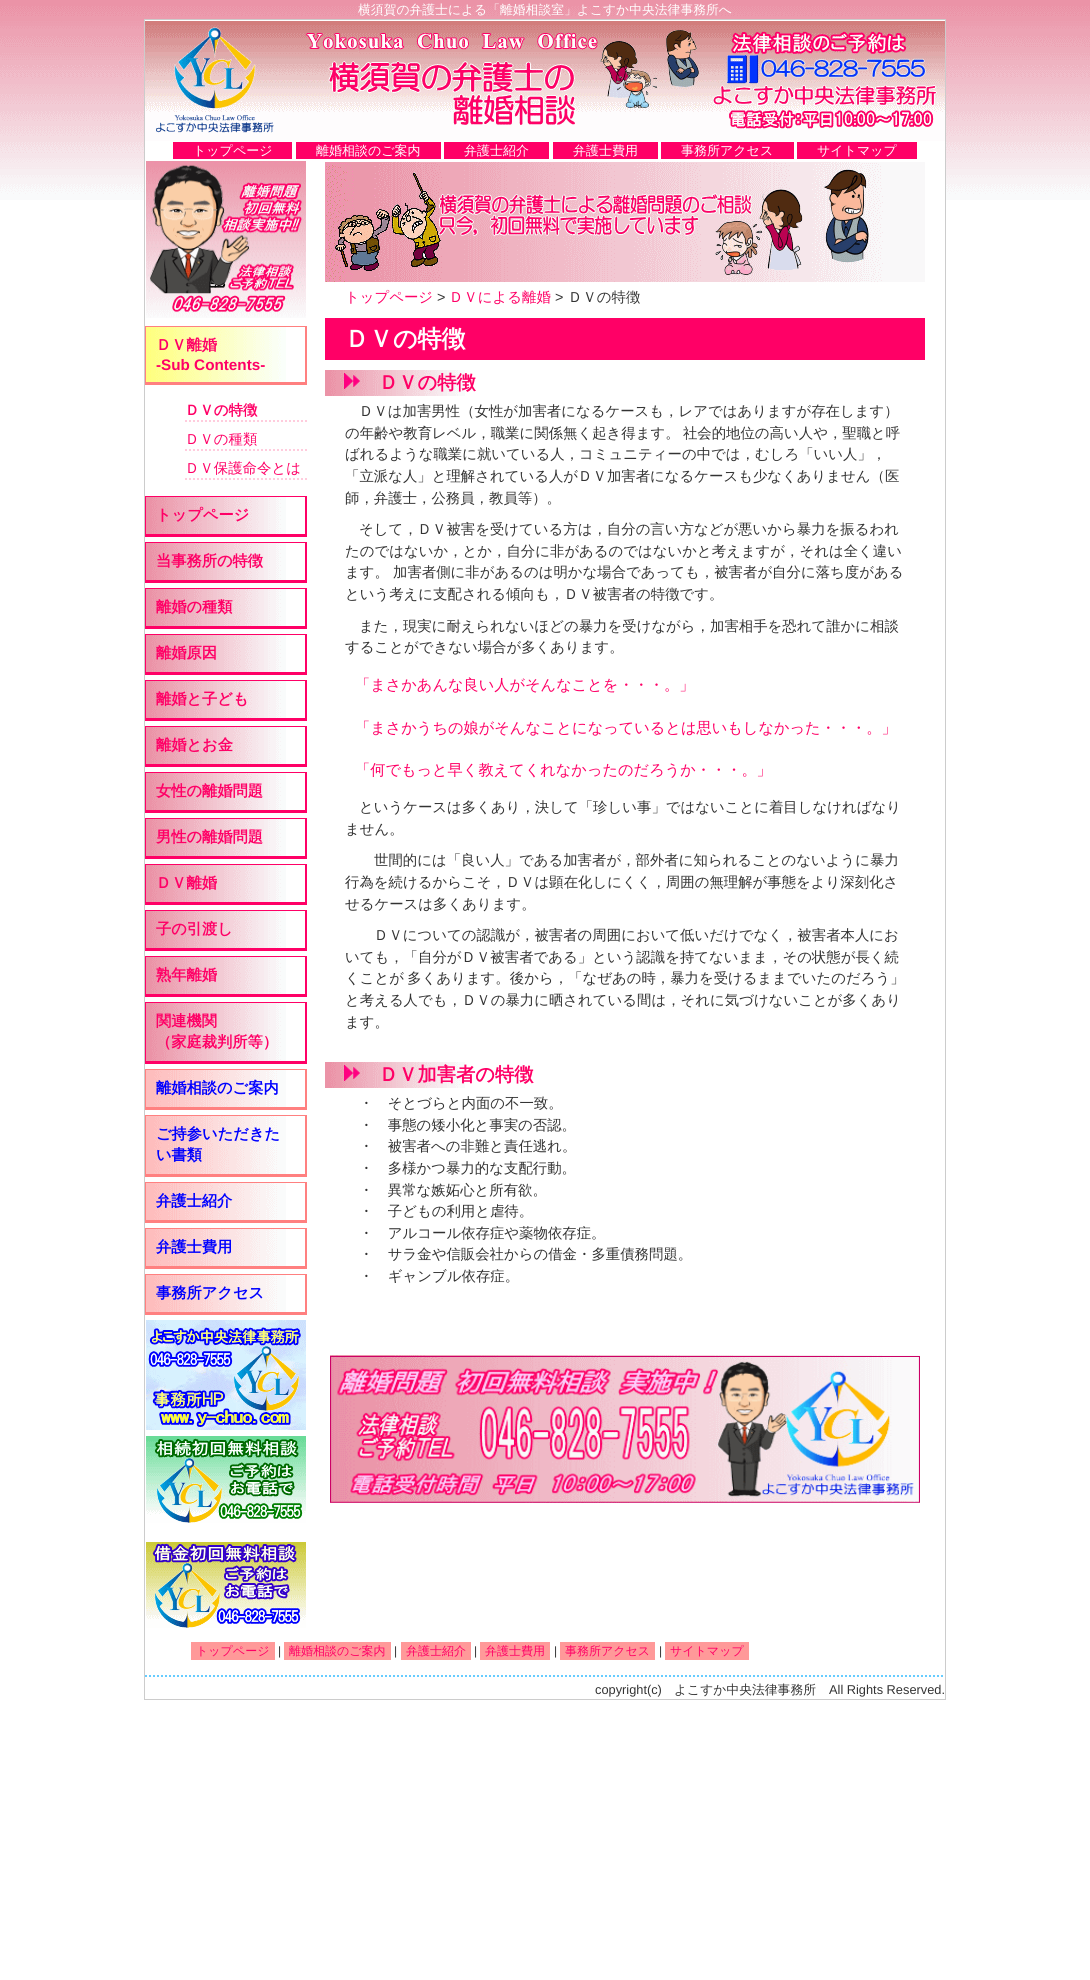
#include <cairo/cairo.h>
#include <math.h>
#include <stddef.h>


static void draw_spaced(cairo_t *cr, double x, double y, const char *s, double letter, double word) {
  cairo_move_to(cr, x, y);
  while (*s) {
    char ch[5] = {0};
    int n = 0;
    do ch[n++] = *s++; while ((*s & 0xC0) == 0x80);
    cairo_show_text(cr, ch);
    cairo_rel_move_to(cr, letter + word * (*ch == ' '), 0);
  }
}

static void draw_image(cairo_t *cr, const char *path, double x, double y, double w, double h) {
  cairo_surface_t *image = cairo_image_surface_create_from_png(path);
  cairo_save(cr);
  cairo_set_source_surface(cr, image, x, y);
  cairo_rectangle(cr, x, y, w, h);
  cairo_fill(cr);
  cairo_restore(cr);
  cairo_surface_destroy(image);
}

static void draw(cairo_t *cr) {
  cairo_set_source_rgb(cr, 1, 1, 1);
  cairo_paint(cr);
  draw_image(cr, "images/1.png", 0, 0, 1090, 200);
  cairo_set_source_rgb(cr, 1, 1, 1);
  cairo_rectangle(cr, 145, 20, 800, 180);
  cairo_fill(cr);
  cairo_rectangle(cr, 144.5, 19.5, 801, 1680);
  cairo_set_source_rgb(cr, 204 / 255.0, 204 / 255.0, 204 / 255.0);
  cairo_set_line_width(cr, 1);
  cairo_stroke(cr);
  draw_image(cr, "images/2.png", 145, 21, 800, 120);
  cairo_set_source_rgb(cr, 1, 0, 102 / 255.0);
  cairo_rectangle(cr, 173, 142, 119, 17);
  cairo_fill(cr);
  cairo_rectangle(cr, 296, 142, 145, 17);
  cairo_fill(cr);
  cairo_rectangle(cr, 444, 142, 105, 17);
  cairo_fill(cr);
  cairo_rectangle(cr, 553, 142, 105, 17);
  cairo_fill(cr);
  cairo_rectangle(cr, 661, 142, 133, 17);
  cairo_fill(cr);
  cairo_rectangle(cr, 797, 142, 120, 17);
  cairo_fill(cr);
  draw_image(cr, "images/3.png", 146, 161, 160, 157);
  draw_image(cr, "images/4.png", 146, 327, 140, 55);
  cairo_set_source_rgb(cr, 1, 128 / 255.0, 128 / 255.0);
  cairo_rectangle(cr, 145, 326, 162, 1);
  cairo_fill(cr);
  cairo_rectangle(cr, 305, 326, 2, 59);
  cairo_fill(cr);
  cairo_rectangle(cr, 145, 382, 162, 3);
  cairo_fill(cr);
  cairo_rectangle(cr, 145, 326, 1, 59);
  cairo_fill(cr);
  cairo_new_path(cr);
  cairo_move_to(cr, 185, 421);
  cairo_line_to(cr, 307, 421);
  cairo_set_source_rgb(cr, 1, 204 / 255.0, 221 / 255.0);
  cairo_set_line_width(cr, 2);
  cairo_set_dash(cr, (double[]){2, 2}, 2, 0);
  cairo_stroke(cr);
  cairo_new_path(cr);
  cairo_move_to(cr, 185, 450);
  cairo_line_to(cr, 307, 450);
  cairo_stroke(cr);
  cairo_new_path(cr);
  cairo_move_to(cr, 185, 479);
  cairo_line_to(cr, 307, 479);
  cairo_stroke(cr);
  draw_image(cr, "images/5.png", 146, 497, 4, 37);
  draw_image(cr, "images/6.png", 150, 497, 136, 37);
  cairo_set_source_rgb(cr, 1, 0, 102 / 255.0);
  cairo_rectangle(cr, 145, 496, 162, 1);
  cairo_fill(cr);
  cairo_rectangle(cr, 305, 496, 2, 41);
  cairo_fill(cr);
  cairo_rectangle(cr, 145, 534, 162, 3);
  cairo_fill(cr);
  cairo_rectangle(cr, 145, 496, 1, 41);
  cairo_fill(cr);
  draw_image(cr, "images/5.png", 146, 543, 4, 37);
  draw_image(cr, "images/6.png", 150, 543, 136, 37);
  cairo_rectangle(cr, 145, 542, 162, 1);
  cairo_fill(cr);
  cairo_rectangle(cr, 305, 542, 2, 41);
  cairo_fill(cr);
  cairo_rectangle(cr, 145, 580, 162, 3);
  cairo_fill(cr);
  cairo_rectangle(cr, 145, 542, 1, 41);
  cairo_fill(cr);
  draw_image(cr, "images/5.png", 146, 589, 4, 37);
  draw_image(cr, "images/6.png", 150, 589, 136, 37);
  cairo_rectangle(cr, 145, 588, 162, 1);
  cairo_fill(cr);
  cairo_rectangle(cr, 305, 588, 2, 41);
  cairo_fill(cr);
  cairo_rectangle(cr, 145, 626, 162, 3);
  cairo_fill(cr);
  cairo_rectangle(cr, 145, 588, 1, 41);
  cairo_fill(cr);
  draw_image(cr, "images/5.png", 146, 635, 4, 37);
  draw_image(cr, "images/6.png", 150, 635, 136, 37);
  cairo_rectangle(cr, 145, 634, 162, 1);
  cairo_fill(cr);
  cairo_rectangle(cr, 305, 634, 2, 41);
  cairo_fill(cr);
  cairo_rectangle(cr, 145, 672, 162, 3);
  cairo_fill(cr);
  cairo_rectangle(cr, 145, 634, 1, 41);
  cairo_fill(cr);
  draw_image(cr, "images/5.png", 146, 681, 4, 37);
  draw_image(cr, "images/6.png", 150, 681, 136, 37);
  cairo_rectangle(cr, 145, 680, 162, 1);
  cairo_fill(cr);
  cairo_rectangle(cr, 305, 680, 2, 41);
  cairo_fill(cr);
  cairo_rectangle(cr, 145, 718, 162, 3);
  cairo_fill(cr);
  cairo_rectangle(cr, 145, 680, 1, 41);
  cairo_fill(cr);
  draw_image(cr, "images/5.png", 146, 727, 4, 37);
  draw_image(cr, "images/6.png", 150, 727, 136, 37);
  cairo_rectangle(cr, 145, 726, 162, 1);
  cairo_fill(cr);
  cairo_rectangle(cr, 305, 726, 2, 41);
  cairo_fill(cr);
  cairo_rectangle(cr, 145, 764, 162, 3);
  cairo_fill(cr);
  cairo_rectangle(cr, 145, 726, 1, 41);
  cairo_fill(cr);
  draw_image(cr, "images/5.png", 146, 773, 4, 37);
  draw_image(cr, "images/6.png", 150, 773, 136, 37);
  cairo_rectangle(cr, 145, 772, 162, 1);
  cairo_fill(cr);
  cairo_rectangle(cr, 305, 772, 2, 41);
  cairo_fill(cr);
  cairo_rectangle(cr, 145, 810, 162, 3);
  cairo_fill(cr);
  cairo_rectangle(cr, 145, 772, 1, 41);
  cairo_fill(cr);
  draw_image(cr, "images/5.png", 146, 819, 4, 37);
  draw_image(cr, "images/6.png", 150, 819, 136, 37);
  cairo_rectangle(cr, 145, 818, 162, 1);
  cairo_fill(cr);
  cairo_rectangle(cr, 305, 818, 2, 41);
  cairo_fill(cr);
  cairo_rectangle(cr, 145, 856, 162, 3);
  cairo_fill(cr);
  cairo_rectangle(cr, 145, 818, 1, 41);
  cairo_fill(cr);
  draw_image(cr, "images/5.png", 146, 865, 4, 37);
  draw_image(cr, "images/6.png", 150, 865, 136, 37);
  cairo_rectangle(cr, 145, 864, 162, 1);
  cairo_fill(cr);
  cairo_rectangle(cr, 305, 864, 2, 41);
  cairo_fill(cr);
  cairo_rectangle(cr, 145, 902, 162, 3);
  cairo_fill(cr);
  cairo_rectangle(cr, 145, 864, 1, 41);
  cairo_fill(cr);
  draw_image(cr, "images/5.png", 146, 911, 4, 37);
  draw_image(cr, "images/6.png", 150, 911, 136, 37);
  cairo_rectangle(cr, 145, 910, 162, 1);
  cairo_fill(cr);
  cairo_rectangle(cr, 305, 910, 2, 41);
  cairo_fill(cr);
  cairo_rectangle(cr, 145, 948, 162, 3);
  cairo_fill(cr);
  cairo_rectangle(cr, 145, 910, 1, 41);
  cairo_fill(cr);
  draw_image(cr, "images/5.png", 146, 957, 4, 37);
  draw_image(cr, "images/6.png", 150, 957, 136, 37);
  cairo_rectangle(cr, 145, 956, 162, 1);
  cairo_fill(cr);
  cairo_rectangle(cr, 305, 956, 2, 41);
  cairo_fill(cr);
  cairo_rectangle(cr, 145, 994, 162, 3);
  cairo_fill(cr);
  cairo_rectangle(cr, 145, 956, 1, 41);
  cairo_fill(cr);
  draw_image(cr, "images/7.png", 146, 1003, 4, 58);
  draw_image(cr, "images/8.png", 150, 1003, 136, 58);
  cairo_rectangle(cr, 145, 1002, 162, 1);
  cairo_fill(cr);
  cairo_rectangle(cr, 305, 1002, 2, 62);
  cairo_fill(cr);
  cairo_rectangle(cr, 145, 1061, 162, 3);
  cairo_fill(cr);
  cairo_rectangle(cr, 145, 1002, 1, 62);
  cairo_fill(cr);
  draw_image(cr, "images/9.png", 146, 1070, 140, 37);
  cairo_set_source_rgb(cr, 1, 128 / 255.0, 128 / 255.0);
  cairo_rectangle(cr, 145, 1069, 162, 1);
  cairo_fill(cr);
  cairo_rectangle(cr, 305, 1069, 2, 41);
  cairo_fill(cr);
  cairo_rectangle(cr, 145, 1107, 162, 3);
  cairo_fill(cr);
  cairo_rectangle(cr, 145, 1069, 1, 41);
  cairo_fill(cr);
  draw_image(cr, "images/10.png", 146, 1116, 140, 58);
  cairo_rectangle(cr, 145, 1115, 162, 1);
  cairo_fill(cr);
  cairo_rectangle(cr, 305, 1115, 2, 62);
  cairo_fill(cr);
  cairo_rectangle(cr, 145, 1174, 162, 3);
  cairo_fill(cr);
  cairo_rectangle(cr, 145, 1115, 1, 62);
  cairo_fill(cr);
  draw_image(cr, "images/9.png", 146, 1183, 140, 37);
  cairo_rectangle(cr, 145, 1182, 162, 1);
  cairo_fill(cr);
  cairo_rectangle(cr, 305, 1182, 2, 41);
  cairo_fill(cr);
  cairo_rectangle(cr, 145, 1220, 162, 3);
  cairo_fill(cr);
  cairo_rectangle(cr, 145, 1182, 1, 41);
  cairo_fill(cr);
  draw_image(cr, "images/9.png", 146, 1229, 140, 37);
  cairo_rectangle(cr, 145, 1228, 162, 1);
  cairo_fill(cr);
  cairo_rectangle(cr, 305, 1228, 2, 41);
  cairo_fill(cr);
  cairo_rectangle(cr, 145, 1266, 162, 3);
  cairo_fill(cr);
  cairo_rectangle(cr, 145, 1228, 1, 41);
  cairo_fill(cr);
  draw_image(cr, "images/9.png", 146, 1275, 140, 37);
  cairo_rectangle(cr, 145, 1274, 162, 1);
  cairo_fill(cr);
  cairo_rectangle(cr, 305, 1274, 2, 41);
  cairo_fill(cr);
  cairo_rectangle(cr, 145, 1312, 162, 3);
  cairo_fill(cr);
  cairo_rectangle(cr, 145, 1274, 1, 41);
  cairo_fill(cr);
  draw_image(cr, "images/11.png", 146, 1320, 160, 110);
  draw_image(cr, "images/12.png", 146, 1436, 160, 87);
  draw_image(cr, "images/13.png", 146, 1542, 160, 86);
  draw_image(cr, "images/14.png", 325, 162, 600, 120);
  cairo_set_source_rgb(cr, 1, 0, 102 / 255.0);
  cairo_rectangle(cr, 325, 318, 600, 42);
  cairo_fill(cr);
  draw_image(cr, "images/15.png", 325, 370, 140, 26);
  draw_image(cr, "images/16.png", 344, 373, 16, 16);
  draw_image(cr, "images/15.png", 325, 1062, 140, 26);
  draw_image(cr, "images/16.png", 344, 1065, 16, 16);
  draw_image(cr, "images/17.png", 330, 1355, 590, 148);
  cairo_set_source_rgb(cr, 1, 153 / 255.0, 153 / 255.0);
  cairo_rectangle(cr, 191, 1642, 84, 18);
  cairo_fill(cr);
  cairo_rectangle(cr, 284, 1642, 107, 18);
  cairo_fill(cr);
  cairo_rectangle(cr, 401, 1642, 70, 18);
  cairo_fill(cr);
  cairo_rectangle(cr, 480, 1642, 70, 18);
  cairo_fill(cr);
  cairo_rectangle(cr, 560, 1642, 95, 18);
  cairo_fill(cr);
  cairo_rectangle(cr, 665, 1642, 84, 18);
  cairo_fill(cr);
  cairo_new_path(cr);
  cairo_move_to(cr, 145, 1676);
  cairo_line_to(cr, 945, 1676);
  cairo_set_source_rgb(cr, 102 / 255.0, 204 / 255.0, 1);
  cairo_stroke(cr);
  cairo_select_font_face(cr, "WenQuanYi Zen Hei Medium", CAIRO_FONT_SLANT_NORMAL, CAIRO_FONT_WEIGHT_NORMAL);
  cairo_set_font_size(cr, 12.8);
  cairo_set_source_rgb(cr, 1, 1, 1);
  cairo_move_to(cr, 358, 14);
  cairo_show_text(cr, "横須賀の弁護士による「離婚相談室」よこすか中央法律事務所へ");
  cairo_set_font_size(cr, 13);
  cairo_move_to(cr, 193, 155);
  cairo_show_text(cr, "トップページ");
  cairo_move_to(cr, 316, 155);
  cairo_show_text(cr, "離婚相談のご案内");
  cairo_move_to(cr, 464, 155);
  cairo_show_text(cr, "弁護士紹介");
  cairo_move_to(cr, 573, 155);
  cairo_show_text(cr, "弁護士費用");
  cairo_move_to(cr, 681, 155);
  cairo_show_text(cr, "事務所アクセス");
  cairo_move_to(cr, 817, 155);
  cairo_show_text(cr, "サイトマップ");
  cairo_select_font_face(cr, "WenQuanYi Zen Hei", CAIRO_FONT_SLANT_NORMAL, CAIRO_FONT_WEIGHT_BOLD);
  cairo_set_font_size(cr, 15.25);
  cairo_set_source_rgb(cr, 1, 0, 102 / 255.0);
  cairo_move_to(cr, 156, 350);
  cairo_show_text(cr, "ＤＶ離婚");
  cairo_select_font_face(cr, "Liberation Sans", CAIRO_FONT_SLANT_NORMAL, CAIRO_FONT_WEIGHT_BOLD);
  cairo_move_to(cr, 156, 370);
  cairo_show_text(cr, "-Sub Contents-");
  cairo_select_font_face(cr, "WenQuanYi Zen Hei", CAIRO_FONT_SLANT_NORMAL, CAIRO_FONT_WEIGHT_BOLD);
  cairo_set_font_size(cr, 14.4);
  cairo_move_to(cr, 185, 415);
  cairo_show_text(cr, "ＤＶの特徴");
  cairo_select_font_face(cr, "WenQuanYi Zen Hei Medium", CAIRO_FONT_SLANT_NORMAL, CAIRO_FONT_WEIGHT_NORMAL);
  cairo_move_to(cr, 185, 444);
  cairo_show_text(cr, "ＤＶの種類");
  cairo_move_to(cr, 185, 473);
  cairo_show_text(cr, "ＤＶ保護命令とは");
  cairo_select_font_face(cr, "WenQuanYi Zen Hei", CAIRO_FONT_SLANT_NORMAL, CAIRO_FONT_WEIGHT_BOLD);
  cairo_set_font_size(cr, 15.25);
  cairo_move_to(cr, 156, 520);
  cairo_show_text(cr, "トップページ");
  cairo_move_to(cr, 156, 566);
  cairo_show_text(cr, "当事務所の特徴");
  cairo_move_to(cr, 156, 612);
  cairo_show_text(cr, "離婚の種類");
  cairo_move_to(cr, 156, 658);
  cairo_show_text(cr, "離婚原因");
  cairo_move_to(cr, 156, 704);
  cairo_show_text(cr, "離婚と子ども");
  cairo_move_to(cr, 156, 750);
  cairo_show_text(cr, "離婚とお金");
  cairo_move_to(cr, 156, 796);
  cairo_show_text(cr, "女性の離婚問題");
  cairo_move_to(cr, 156, 842);
  cairo_show_text(cr, "男性の離婚問題");
  cairo_move_to(cr, 156, 888);
  cairo_show_text(cr, "ＤＶ離婚");
  cairo_move_to(cr, 156, 934);
  cairo_show_text(cr, "子の引渡し");
  cairo_move_to(cr, 156, 980);
  cairo_show_text(cr, "熟年離婚");
  cairo_move_to(cr, 156, 1026);
  cairo_show_text(cr, "関連機関");
  cairo_move_to(cr, 156, 1047);
  cairo_show_text(cr, "（家庭裁判所等）");
  cairo_set_source_rgb(cr, 0, 0, 1);
  cairo_move_to(cr, 156, 1093);
  cairo_show_text(cr, "離婚相談のご案内");
  cairo_move_to(cr, 156, 1139);
  cairo_show_text(cr, "ご持参いただきた");
  cairo_move_to(cr, 156, 1160);
  cairo_show_text(cr, "い書類");
  cairo_move_to(cr, 156, 1206);
  cairo_show_text(cr, "弁護士紹介");
  cairo_move_to(cr, 156, 1252);
  cairo_show_text(cr, "弁護士費用");
  cairo_move_to(cr, 156, 1298);
  cairo_show_text(cr, "事務所アクセス");
  cairo_select_font_face(cr, "WenQuanYi Zen Hei Medium", CAIRO_FONT_SLANT_NORMAL, CAIRO_FONT_WEIGHT_NORMAL);
  cairo_set_font_size(cr, 14.4);
  cairo_set_source_rgb(cr, 1, 0, 102 / 255.0);
  cairo_move_to(cr, 345, 302);
  cairo_show_text(cr, "トップページ");
  cairo_select_font_face(cr, "Liberation Sans", CAIRO_FONT_SLANT_NORMAL, CAIRO_FONT_WEIGHT_NORMAL);
  cairo_set_source_rgb(cr, 51 / 255.0, 51 / 255.0, 51 / 255.0);
  cairo_move_to(cr, 437, 302);
  cairo_show_text(cr, ">");
  cairo_select_font_face(cr, "WenQuanYi Zen Hei Medium", CAIRO_FONT_SLANT_NORMAL, CAIRO_FONT_WEIGHT_NORMAL);
  cairo_set_source_rgb(cr, 1, 0, 102 / 255.0);
  cairo_move_to(cr, 449, 302);
  cairo_show_text(cr, "ＤＶによる離婚");
  cairo_select_font_face(cr, "Liberation Sans", CAIRO_FONT_SLANT_NORMAL, CAIRO_FONT_WEIGHT_NORMAL);
  cairo_set_source_rgb(cr, 51 / 255.0, 51 / 255.0, 51 / 255.0);
  cairo_move_to(cr, 555, 302);
  cairo_show_text(cr, ">");
  cairo_select_font_face(cr, "WenQuanYi Zen Hei Medium", CAIRO_FONT_SLANT_NORMAL, CAIRO_FONT_WEIGHT_NORMAL);
  cairo_move_to(cr, 568, 302);
  cairo_show_text(cr, "ＤＶの特徴");
  cairo_select_font_face(cr, "WenQuanYi Zen Hei", CAIRO_FONT_SLANT_NORMAL, CAIRO_FONT_WEIGHT_BOLD);
  cairo_set_font_size(cr, 24);
  cairo_set_source_rgb(cr, 1, 1, 1);
  cairo_move_to(cr, 345, 347);
  cairo_show_text(cr, "ＤＶの特徴");
  cairo_set_font_size(cr, 19.25);
  cairo_set_source_rgb(cr, 1, 0, 102 / 255.0);
  cairo_move_to(cr, 379, 389);
  cairo_show_text(cr, "ＤＶの特徴");
  cairo_select_font_face(cr, "WenQuanYi Zen Hei Medium", CAIRO_FONT_SLANT_NORMAL, CAIRO_FONT_WEIGHT_NORMAL);
  cairo_set_font_size(cr, 14.4);
  cairo_set_source_rgb(cr, 51 / 255.0, 51 / 255.0, 51 / 255.0);
  cairo_move_to(cr, 359, 416);
  cairo_show_text(cr, "ＤＶは加害男性（女性が加害者になるケースも，レアではありますが存在します）");
  draw_spaced(cr, 345, 438, "の年齢や教育レベル，職業に関係無く起き得ます。 社会的地位の高い人や，聖職と呼", 0, -1);
  cairo_move_to(cr, 345, 459);
  cairo_show_text(cr, "ばれるような職業に就いている人，コミュニティーの中では，むしろ「いい人」，");
  cairo_move_to(cr, 345, 481);
  cairo_show_text(cr, "「立派な人」と理解されている人がＤＶ加害者になるケースも少なくありません（医");
  cairo_move_to(cr, 345, 503);
  cairo_show_text(cr, "師，弁護士，公務員，教員等）。");
  cairo_move_to(cr, 359, 534);
  cairo_show_text(cr, "そして，ＤＶ被害を受けている方は，自分の言い方などが悪いから暴力を振るわれ");
  cairo_move_to(cr, 345, 556);
  cairo_show_text(cr, "たのではないか，とか，自分に非があるのではないかと考えますが，それは全く違い");
  cairo_move_to(cr, 345, 577);
  cairo_show_text(cr, "ます。");
  cairo_move_to(cr, 393, 577);
  cairo_show_text(cr, "加害者側に非があるのは明かな場合であっても，被害者が自分に落ち度がある");
  cairo_move_to(cr, 345, 599);
  cairo_show_text(cr, "という考えに支配される傾向も，ＤＶ被害者の特徴です。");
  cairo_move_to(cr, 359, 631);
  cairo_show_text(cr, "また，現実に耐えられないほどの暴力を受けながら，加害相手を恐れて誰かに相談");
  cairo_move_to(cr, 345, 652);
  cairo_show_text(cr, "することができない場合が多くあります。");
  cairo_set_font_size(cr, 15.2);
  cairo_set_source_rgb(cr, 1, 0, 102 / 255.0);
  cairo_move_to(cr, 355, 690);
  cairo_show_text(cr, "「まさかあんな良い人がそんなことを・・・。」");
  cairo_move_to(cr, 355, 733);
  cairo_show_text(cr, "「まさかうちの娘がそんなことになっているとは思いもしなかった・・・。」");
  cairo_move_to(cr, 355, 775);
  cairo_show_text(cr, "「何でもっと早く教えてくれなかったのだろうか・・・。」");
  cairo_set_font_size(cr, 14.4);
  cairo_set_source_rgb(cr, 51 / 255.0, 51 / 255.0, 51 / 255.0);
  cairo_move_to(cr, 359, 812);
  cairo_show_text(cr, "というケースは多くあり，決して「珍しい事」ではないことに着目しなければなり");
  cairo_move_to(cr, 345, 834);
  cairo_show_text(cr, "ません。");
  cairo_move_to(cr, 374, 865);
  cairo_show_text(cr, "世間的には「良い人」である加害者が，部外者に知られることのないように暴力");
  cairo_move_to(cr, 345, 887);
  cairo_show_text(cr, "行為を続けるからこそ，ＤＶは顕在化しにくく，周囲の無理解が事態をより深刻化さ");
  cairo_move_to(cr, 345, 909);
  cairo_show_text(cr, "せるケースは多くあります。");
  cairo_move_to(cr, 374, 940);
  cairo_show_text(cr, "ＤＶについての認識が，被害者の周囲において低いだけでなく，被害者本人にお");
  cairo_move_to(cr, 345, 962);
  cairo_show_text(cr, "いても，「自分がＤＶ被害者である」という認識を持てないまま，その状態が長く続");
  draw_spaced(cr, 345, 983, "くことが 多くあります。後から，「なぜあの時，暴力を受けるままでいたのだろう」", 0, -1);
  cairo_move_to(cr, 345, 1005);
  cairo_show_text(cr, "と考える人でも，ＤＶの暴力に晒されている間は，それに気づけないことが多くあり");
  cairo_move_to(cr, 345, 1027);
  cairo_show_text(cr, "ます。");
  cairo_select_font_face(cr, "WenQuanYi Zen Hei", CAIRO_FONT_SLANT_NORMAL, CAIRO_FONT_WEIGHT_BOLD);
  cairo_set_font_size(cr, 19.25);
  cairo_set_source_rgb(cr, 1, 0, 102 / 255.0);
  cairo_move_to(cr, 379, 1081);
  cairo_show_text(cr, "ＤＶ加害者の特徴");
  cairo_select_font_face(cr, "WenQuanYi Zen Hei Medium", CAIRO_FONT_SLANT_NORMAL, CAIRO_FONT_WEIGHT_NORMAL);
  cairo_set_font_size(cr, 14.4);
  cairo_set_source_rgb(cr, 51 / 255.0, 51 / 255.0, 51 / 255.0);
  cairo_move_to(cr, 359, 1108);
  cairo_show_text(cr, "・　そとづらと内面の不一致。");
  cairo_move_to(cr, 359, 1130);
  cairo_show_text(cr, "・　事態の矮小化と事実の否認。");
  cairo_move_to(cr, 359, 1151);
  cairo_show_text(cr, "・　被害者への非難と責任逃れ。");
  cairo_move_to(cr, 359, 1173);
  cairo_show_text(cr, "・　多様かつ暴力的な支配行動。");
  cairo_move_to(cr, 359, 1195);
  cairo_show_text(cr, "・　異常な嫉妬心と所有欲。");
  cairo_move_to(cr, 359, 1216);
  cairo_show_text(cr, "・　子どもの利用と虐待。");
  cairo_move_to(cr, 359, 1238);
  cairo_show_text(cr, "・　アルコール依存症や薬物依存症。");
  cairo_move_to(cr, 359, 1259);
  cairo_show_text(cr, "・　サラ金や信販会社からの借金・多重債務問題。");
  cairo_move_to(cr, 359, 1281);
  cairo_show_text(cr, "・　ギャンブル依存症。");
  cairo_set_font_size(cr, 12);
  cairo_set_source_rgb(cr, 1, 0, 102 / 255.0);
  cairo_move_to(cr, 196, 1655);
  cairo_show_text(cr, "トップページ");
  cairo_select_font_face(cr, "Liberation Sans", CAIRO_FONT_SLANT_NORMAL, CAIRO_FONT_WEIGHT_NORMAL);
  cairo_set_source_rgb(cr, 51 / 255.0, 51 / 255.0, 51 / 255.0);
  cairo_move_to(cr, 278, 1655);
  cairo_show_text(cr, "|");
  cairo_select_font_face(cr, "WenQuanYi Zen Hei Medium", CAIRO_FONT_SLANT_NORMAL, CAIRO_FONT_WEIGHT_NORMAL);
  cairo_set_source_rgb(cr, 1, 0, 102 / 255.0);
  cairo_move_to(cr, 289, 1655);
  cairo_show_text(cr, "離婚相談のご案内");
  cairo_select_font_face(cr, "Liberation Sans", CAIRO_FONT_SLANT_NORMAL, CAIRO_FONT_WEIGHT_NORMAL);
  cairo_set_source_rgb(cr, 51 / 255.0, 51 / 255.0, 51 / 255.0);
  cairo_move_to(cr, 394, 1655);
  cairo_show_text(cr, "|");
  cairo_select_font_face(cr, "WenQuanYi Zen Hei Medium", CAIRO_FONT_SLANT_NORMAL, CAIRO_FONT_WEIGHT_NORMAL);
  cairo_set_source_rgb(cr, 1, 0, 102 / 255.0);
  cairo_move_to(cr, 406, 1655);
  cairo_show_text(cr, "弁護士紹介");
  cairo_select_font_face(cr, "Liberation Sans", CAIRO_FONT_SLANT_NORMAL, CAIRO_FONT_WEIGHT_NORMAL);
  cairo_set_source_rgb(cr, 51 / 255.0, 51 / 255.0, 51 / 255.0);
  cairo_move_to(cr, 474, 1655);
  cairo_show_text(cr, "|");
  cairo_select_font_face(cr, "WenQuanYi Zen Hei Medium", CAIRO_FONT_SLANT_NORMAL, CAIRO_FONT_WEIGHT_NORMAL);
  cairo_set_source_rgb(cr, 1, 0, 102 / 255.0);
  cairo_move_to(cr, 485, 1655);
  cairo_show_text(cr, "弁護士費用");
  cairo_select_font_face(cr, "Liberation Sans", CAIRO_FONT_SLANT_NORMAL, CAIRO_FONT_WEIGHT_NORMAL);
  cairo_set_source_rgb(cr, 51 / 255.0, 51 / 255.0, 51 / 255.0);
  cairo_move_to(cr, 554, 1655);
  cairo_show_text(cr, "|");
  cairo_select_font_face(cr, "WenQuanYi Zen Hei Medium", CAIRO_FONT_SLANT_NORMAL, CAIRO_FONT_WEIGHT_NORMAL);
  cairo_set_source_rgb(cr, 1, 0, 102 / 255.0);
  cairo_move_to(cr, 565, 1655);
  cairo_show_text(cr, "事務所アクセス");
  cairo_select_font_face(cr, "Liberation Sans", CAIRO_FONT_SLANT_NORMAL, CAIRO_FONT_WEIGHT_NORMAL);
  cairo_set_source_rgb(cr, 51 / 255.0, 51 / 255.0, 51 / 255.0);
  cairo_move_to(cr, 659, 1655);
  cairo_show_text(cr, "|");
  cairo_select_font_face(cr, "WenQuanYi Zen Hei Medium", CAIRO_FONT_SLANT_NORMAL, CAIRO_FONT_WEIGHT_NORMAL);
  cairo_set_source_rgb(cr, 1, 0, 102 / 255.0);
  cairo_move_to(cr, 670, 1655);
  cairo_show_text(cr, "サイトマップ");
  cairo_select_font_face(cr, "Liberation Sans", CAIRO_FONT_SLANT_NORMAL, CAIRO_FONT_WEIGHT_NORMAL);
  cairo_set_font_size(cr, 12.8);
  cairo_set_source_rgb(cr, 51 / 255.0, 51 / 255.0, 51 / 255.0);
  cairo_move_to(cr, 595, 1694);
  cairo_show_text(cr, "copyright(c)");
  cairo_select_font_face(cr, "WenQuanYi Zen Hei Medium", CAIRO_FONT_SLANT_NORMAL, CAIRO_FONT_WEIGHT_NORMAL);
  cairo_move_to(cr, 674, 1694);
  cairo_show_text(cr, "よこすか中央法律事務所");
  cairo_select_font_face(cr, "Liberation Sans", CAIRO_FONT_SLANT_NORMAL, CAIRO_FONT_WEIGHT_NORMAL);
  cairo_move_to(cr, 829, 1694);
  cairo_show_text(cr, "All Rights Reserved.");
}

int main(void) {
  cairo_surface_t *surface = cairo_image_surface_create(CAIRO_FORMAT_RGB24, 1090, 1980);
  cairo_t *cr = cairo_create(surface);
  cairo_font_options_t *options = cairo_font_options_create();
  cairo_font_options_set_hint_metrics(options, CAIRO_HINT_METRICS_OFF);
  cairo_font_options_set_hint_style(options, CAIRO_HINT_STYLE_NONE);
  cairo_set_font_options(cr, options);
  cairo_set_miter_limit(cr, 4);
  draw(cr);
  cairo_surface_write_to_png(surface, "out.png");
  cairo_font_options_destroy(options);
  cairo_destroy(cr);
  cairo_surface_destroy(surface);
  return 0;
}
